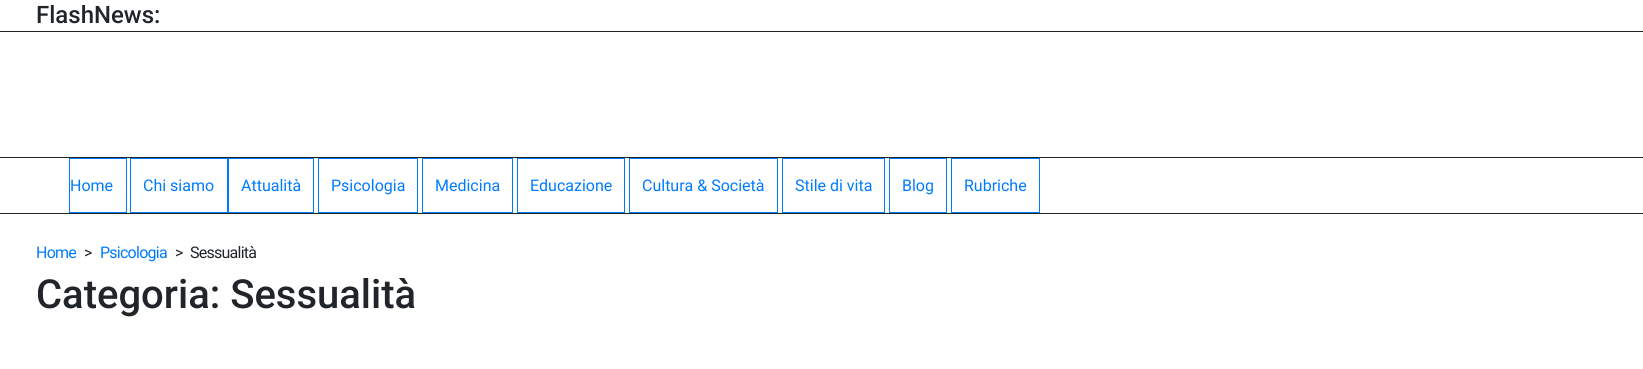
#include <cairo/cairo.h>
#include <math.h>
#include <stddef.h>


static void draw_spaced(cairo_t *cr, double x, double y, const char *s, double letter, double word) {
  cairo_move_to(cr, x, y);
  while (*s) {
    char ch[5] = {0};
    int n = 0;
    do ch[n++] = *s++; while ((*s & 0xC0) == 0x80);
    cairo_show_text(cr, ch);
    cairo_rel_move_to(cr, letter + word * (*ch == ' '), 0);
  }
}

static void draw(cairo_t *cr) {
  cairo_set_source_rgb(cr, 1, 1, 1);
  cairo_paint(cr);
  cairo_set_source_rgb(cr, 33 / 255.0, 37 / 255.0, 41 / 255.0);
  cairo_rectangle(cr, 0, 31, 1643, 1);
  cairo_fill(cr);
  cairo_rectangle(cr, 0, 157, 1643, 1);
  cairo_fill(cr);
  cairo_rectangle(cr, 0, 213, 1643, 1);
  cairo_fill(cr);
  cairo_rectangle(cr, 69.5, 158.5, 57, 54);
  cairo_set_source_rgb(cr, 0, 123 / 255.0, 1);
  cairo_set_line_width(cr, 1);
  cairo_stroke(cr);
  cairo_rectangle(cr, 130.5, 158.5, 97, 54);
  cairo_stroke(cr);
  cairo_rectangle(cr, 228.5, 158.5, 85, 54);
  cairo_stroke(cr);
  cairo_rectangle(cr, 318.5, 158.5, 99, 54);
  cairo_stroke(cr);
  cairo_rectangle(cr, 422.5, 158.5, 90, 54);
  cairo_stroke(cr);
  cairo_rectangle(cr, 517.5, 158.5, 107, 54);
  cairo_stroke(cr);
  cairo_rectangle(cr, 629.5, 158.5, 148, 54);
  cairo_stroke(cr);
  cairo_rectangle(cr, 782.5, 158.5, 102, 54);
  cairo_stroke(cr);
  cairo_rectangle(cr, 889.5, 158.5, 57, 54);
  cairo_stroke(cr);
  cairo_rectangle(cr, 951.5, 158.5, 88, 54);
  cairo_stroke(cr);
  cairo_select_font_face(cr, "Roboto Medium", CAIRO_FONT_SLANT_NORMAL, CAIRO_FONT_WEIGHT_NORMAL);
  cairo_set_font_size(cr, 24);
  cairo_set_source_rgb(cr, 33 / 255.0, 37 / 255.0, 41 / 255.0);
  cairo_move_to(cr, 36, 23);
  cairo_show_text(cr, "FlashNews:");
  cairo_select_font_face(cr, "Roboto", CAIRO_FONT_SLANT_NORMAL, CAIRO_FONT_WEIGHT_NORMAL);
  cairo_set_font_size(cr, 16);
  cairo_set_source_rgb(cr, 0, 123 / 255.0, 1);
  cairo_move_to(cr, 70, 191);
  cairo_show_text(cr, "Home");
  cairo_move_to(cr, 143, 191);
  cairo_show_text(cr, "Chi siamo");
  cairo_move_to(cr, 241, 191);
  cairo_show_text(cr, "Attualità");
  cairo_move_to(cr, 331, 191);
  cairo_show_text(cr, "Psicologia");
  cairo_move_to(cr, 435, 191);
  cairo_show_text(cr, "Medicina");
  cairo_move_to(cr, 530, 191);
  cairo_show_text(cr, "Educazione");
  cairo_move_to(cr, 642, 191);
  cairo_show_text(cr, "Cultura & Società");
  cairo_move_to(cr, 795, 191);
  cairo_show_text(cr, "Stile di vita");
  cairo_move_to(cr, 902, 191);
  cairo_show_text(cr, "Blog");
  cairo_move_to(cr, 964, 191);
  cairo_show_text(cr, "Rubriche");
  draw_spaced(cr, 36, 258, "Home", -0.75, 0);
  cairo_set_source_rgb(cr, 33 / 255.0, 37 / 255.0, 41 / 255.0);
  draw_spaced(cr, 84, 258, ">", -0.75, 0);
  cairo_set_source_rgb(cr, 0, 123 / 255.0, 1);
  draw_spaced(cr, 100, 258, "Psicologia", -0.75, 0);
  cairo_set_source_rgb(cr, 33 / 255.0, 37 / 255.0, 41 / 255.0);
  draw_spaced(cr, 175, 258, ">", -0.75, 0);
  draw_spaced(cr, 190, 258, "Sessualità", -0.75, 0);
  cairo_select_font_face(cr, "Roboto Medium", CAIRO_FONT_SLANT_NORMAL, CAIRO_FONT_WEIGHT_NORMAL);
  cairo_set_font_size(cr, 40);
  cairo_move_to(cr, 36, 308);
  cairo_show_text(cr, "Categoria: Sessualità");
}

int main(void) {
  cairo_surface_t *surface = cairo_image_surface_create(CAIRO_FORMAT_RGB24, 1643, 369);
  cairo_t *cr = cairo_create(surface);
  cairo_font_options_t *options = cairo_font_options_create();
  cairo_font_options_set_hint_metrics(options, CAIRO_HINT_METRICS_OFF);
  cairo_font_options_set_hint_style(options, CAIRO_HINT_STYLE_NONE);
  cairo_set_font_options(cr, options);
  cairo_set_miter_limit(cr, 4);
  draw(cr);
  cairo_surface_write_to_png(surface, "out.png");
  cairo_font_options_destroy(options);
  cairo_destroy(cr);
  cairo_surface_destroy(surface);
  return 0;
}
